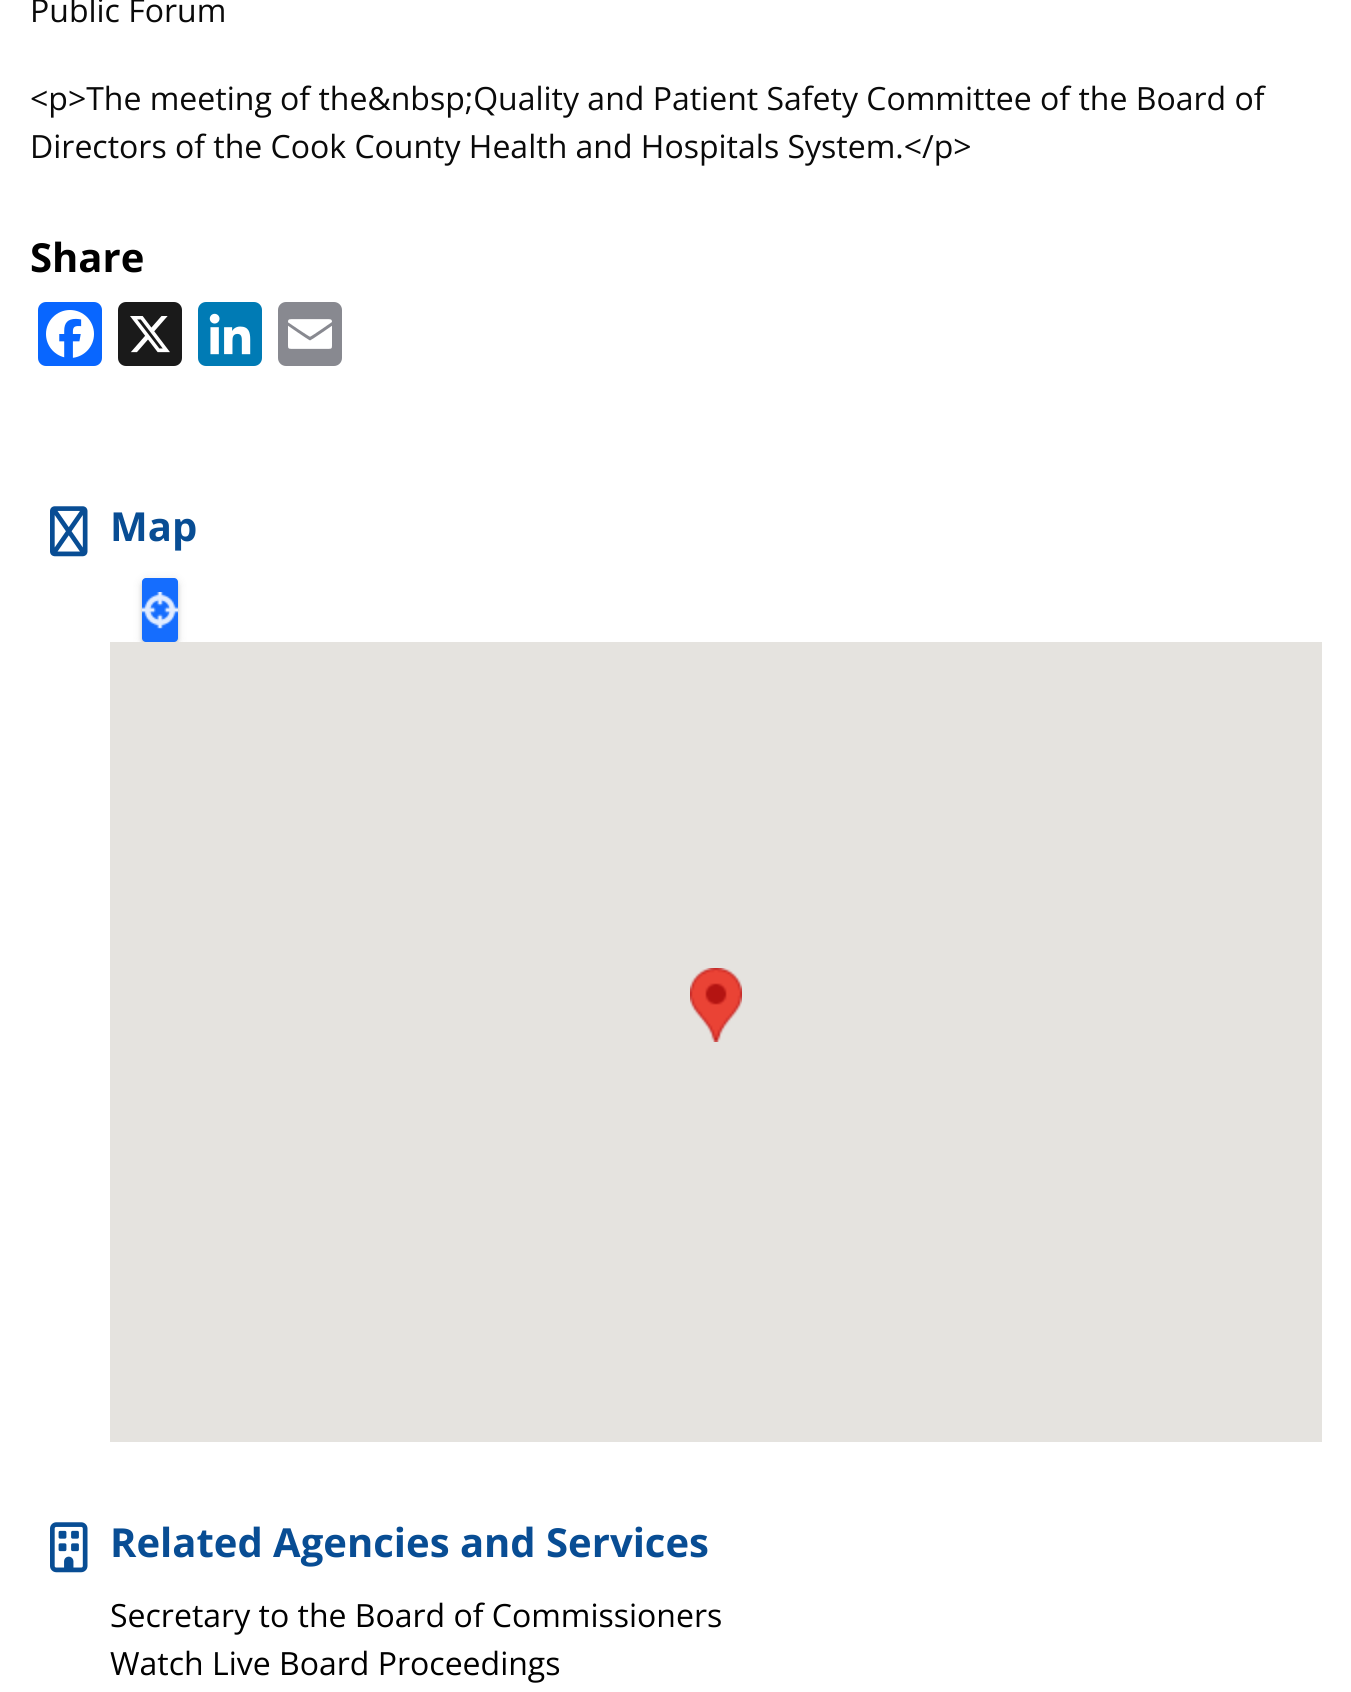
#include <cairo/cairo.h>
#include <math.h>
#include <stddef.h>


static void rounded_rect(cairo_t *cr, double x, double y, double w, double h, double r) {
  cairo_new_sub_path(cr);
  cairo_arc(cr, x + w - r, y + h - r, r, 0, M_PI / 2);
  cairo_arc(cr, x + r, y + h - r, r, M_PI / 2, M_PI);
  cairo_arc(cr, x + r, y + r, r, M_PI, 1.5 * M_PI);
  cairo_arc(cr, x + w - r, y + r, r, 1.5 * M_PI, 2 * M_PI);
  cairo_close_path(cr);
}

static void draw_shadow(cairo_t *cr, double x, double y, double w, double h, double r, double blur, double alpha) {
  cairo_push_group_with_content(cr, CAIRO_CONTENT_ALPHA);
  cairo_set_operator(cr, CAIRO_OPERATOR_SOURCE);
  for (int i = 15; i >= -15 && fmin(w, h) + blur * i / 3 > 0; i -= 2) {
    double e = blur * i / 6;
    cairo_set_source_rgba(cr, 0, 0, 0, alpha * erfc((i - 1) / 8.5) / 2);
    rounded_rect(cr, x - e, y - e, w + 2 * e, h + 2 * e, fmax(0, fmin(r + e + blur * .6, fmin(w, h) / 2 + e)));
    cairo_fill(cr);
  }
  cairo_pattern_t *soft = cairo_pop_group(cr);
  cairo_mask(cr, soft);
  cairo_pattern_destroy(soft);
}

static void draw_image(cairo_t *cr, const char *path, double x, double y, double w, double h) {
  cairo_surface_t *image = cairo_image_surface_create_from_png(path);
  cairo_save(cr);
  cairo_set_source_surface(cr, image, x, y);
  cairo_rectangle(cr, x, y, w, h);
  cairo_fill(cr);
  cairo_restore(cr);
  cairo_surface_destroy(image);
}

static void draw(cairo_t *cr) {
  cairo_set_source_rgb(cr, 1, 1, 1);
  cairo_paint(cr);
  cairo_set_source_rgb(cr, 8 / 255.0, 102 / 255.0, 1);
  rounded_rect(cr, 38, 302, 64, 64, 8);
  cairo_fill(cr);
  draw_image(cr, "images/1.png", 46, 310, 48, 48);
  cairo_set_source_rgb(cr, 26 / 255.0, 26 / 255.0, 26 / 255.0);
  rounded_rect(cr, 118, 302, 64, 64, 8);
  cairo_fill(cr);
  draw_image(cr, "images/2.png", 130, 316, 40, 37);
  cairo_set_source_rgb(cr, 0, 123 / 255.0, 181 / 255.0);
  rounded_rect(cr, 198, 302, 64, 64, 8);
  cairo_fill(cr);
  draw_image(cr, "images/3.png", 209, 313, 42, 42);
  cairo_set_source_rgb(cr, 136 / 255.0, 137 / 255.0, 144 / 255.0);
  rounded_rect(cr, 278, 302, 64, 64, 8);
  cairo_fill(cr);
  draw_image(cr, "images/4.png", 288, 319, 44, 30);
  draw_image(cr, "images/5.png", 50, 506, 38, 51);
  cairo_set_source_rgb(cr, 0, 0, 0);
  draw_shadow(cr, 142, 580, 36, 64, 4, 5, 0.12);
  draw_shadow(cr, 142, 582, 36, 64, 4, 2, 0.14);
  cairo_set_source_rgb(cr, 21 / 255.0, 109 / 255.0, 254 / 255.0);
  rounded_rect(cr, 142, 578, 36, 64, 4);
  cairo_fill(cr);
  draw_image(cr, "images/6.png", 142, 592, 36, 37);
  cairo_set_source_rgb(cr, 229 / 255.0, 227 / 255.0, 223 / 255.0);
  cairo_rectangle(cr, 110, 642, 1212, 800);
  cairo_fill(cr);
  draw_image(cr, "images/7.png", 690, 968, 52, 74);
  draw_image(cr, "images/8.png", 50, 1522, 38, 51);
  cairo_select_font_face(cr, "Open Sans", CAIRO_FONT_SLANT_NORMAL, CAIRO_FONT_WEIGHT_NORMAL);
  cairo_set_font_size(cr, 32);
  cairo_set_source_rgb(cr, 10 / 255.0, 10 / 255.0, 10 / 255.0);
  cairo_move_to(cr, 30, 22);
  cairo_show_text(cr, "Public Forum");
  cairo_move_to(cr, 30, 110);
  cairo_show_text(cr, "<p>The meeting of the&nbsp;Quality and Patient Safety Committee of the Board of");
  cairo_move_to(cr, 30, 158);
  cairo_show_text(cr, "Directors of the Cook County Health and Hospitals System.</p>");
  cairo_select_font_face(cr, "Open Sans", CAIRO_FONT_SLANT_NORMAL, CAIRO_FONT_WEIGHT_BOLD);
  cairo_set_font_size(cr, 40);
  cairo_set_source_rgb(cr, 0, 0, 0);
  cairo_move_to(cr, 30, 272);
  cairo_show_text(cr, "Share");
  cairo_set_source_rgb(cr, 8 / 255.0, 77 / 255.0, 148 / 255.0);
  cairo_move_to(cr, 110, 541);
  cairo_show_text(cr, "Map");
  cairo_move_to(cr, 110, 1557);
  cairo_show_text(cr, "Related Agencies and Services");
  cairo_select_font_face(cr, "Open Sans", CAIRO_FONT_SLANT_NORMAL, CAIRO_FONT_WEIGHT_NORMAL);
  cairo_set_font_size(cr, 32);
  cairo_set_source_rgb(cr, 0, 0, 0);
  cairo_move_to(cr, 110, 1627);
  cairo_show_text(cr, "Secretary to the Board of Commissioners");
  cairo_move_to(cr, 110, 1675);
  cairo_show_text(cr, "Watch Live Board Proceedings");
}

int main(void) {
  cairo_surface_t *surface = cairo_image_surface_create(CAIRO_FORMAT_RGB24, 1351, 1692);
  cairo_t *cr = cairo_create(surface);
  cairo_font_options_t *options = cairo_font_options_create();
  cairo_font_options_set_hint_metrics(options, CAIRO_HINT_METRICS_OFF);
  cairo_font_options_set_hint_style(options, CAIRO_HINT_STYLE_NONE);
  cairo_set_font_options(cr, options);
  cairo_set_miter_limit(cr, 4);
  draw(cr);
  cairo_surface_write_to_png(surface, "out.png");
  cairo_font_options_destroy(options);
  cairo_destroy(cr);
  cairo_surface_destroy(surface);
  return 0;
}
